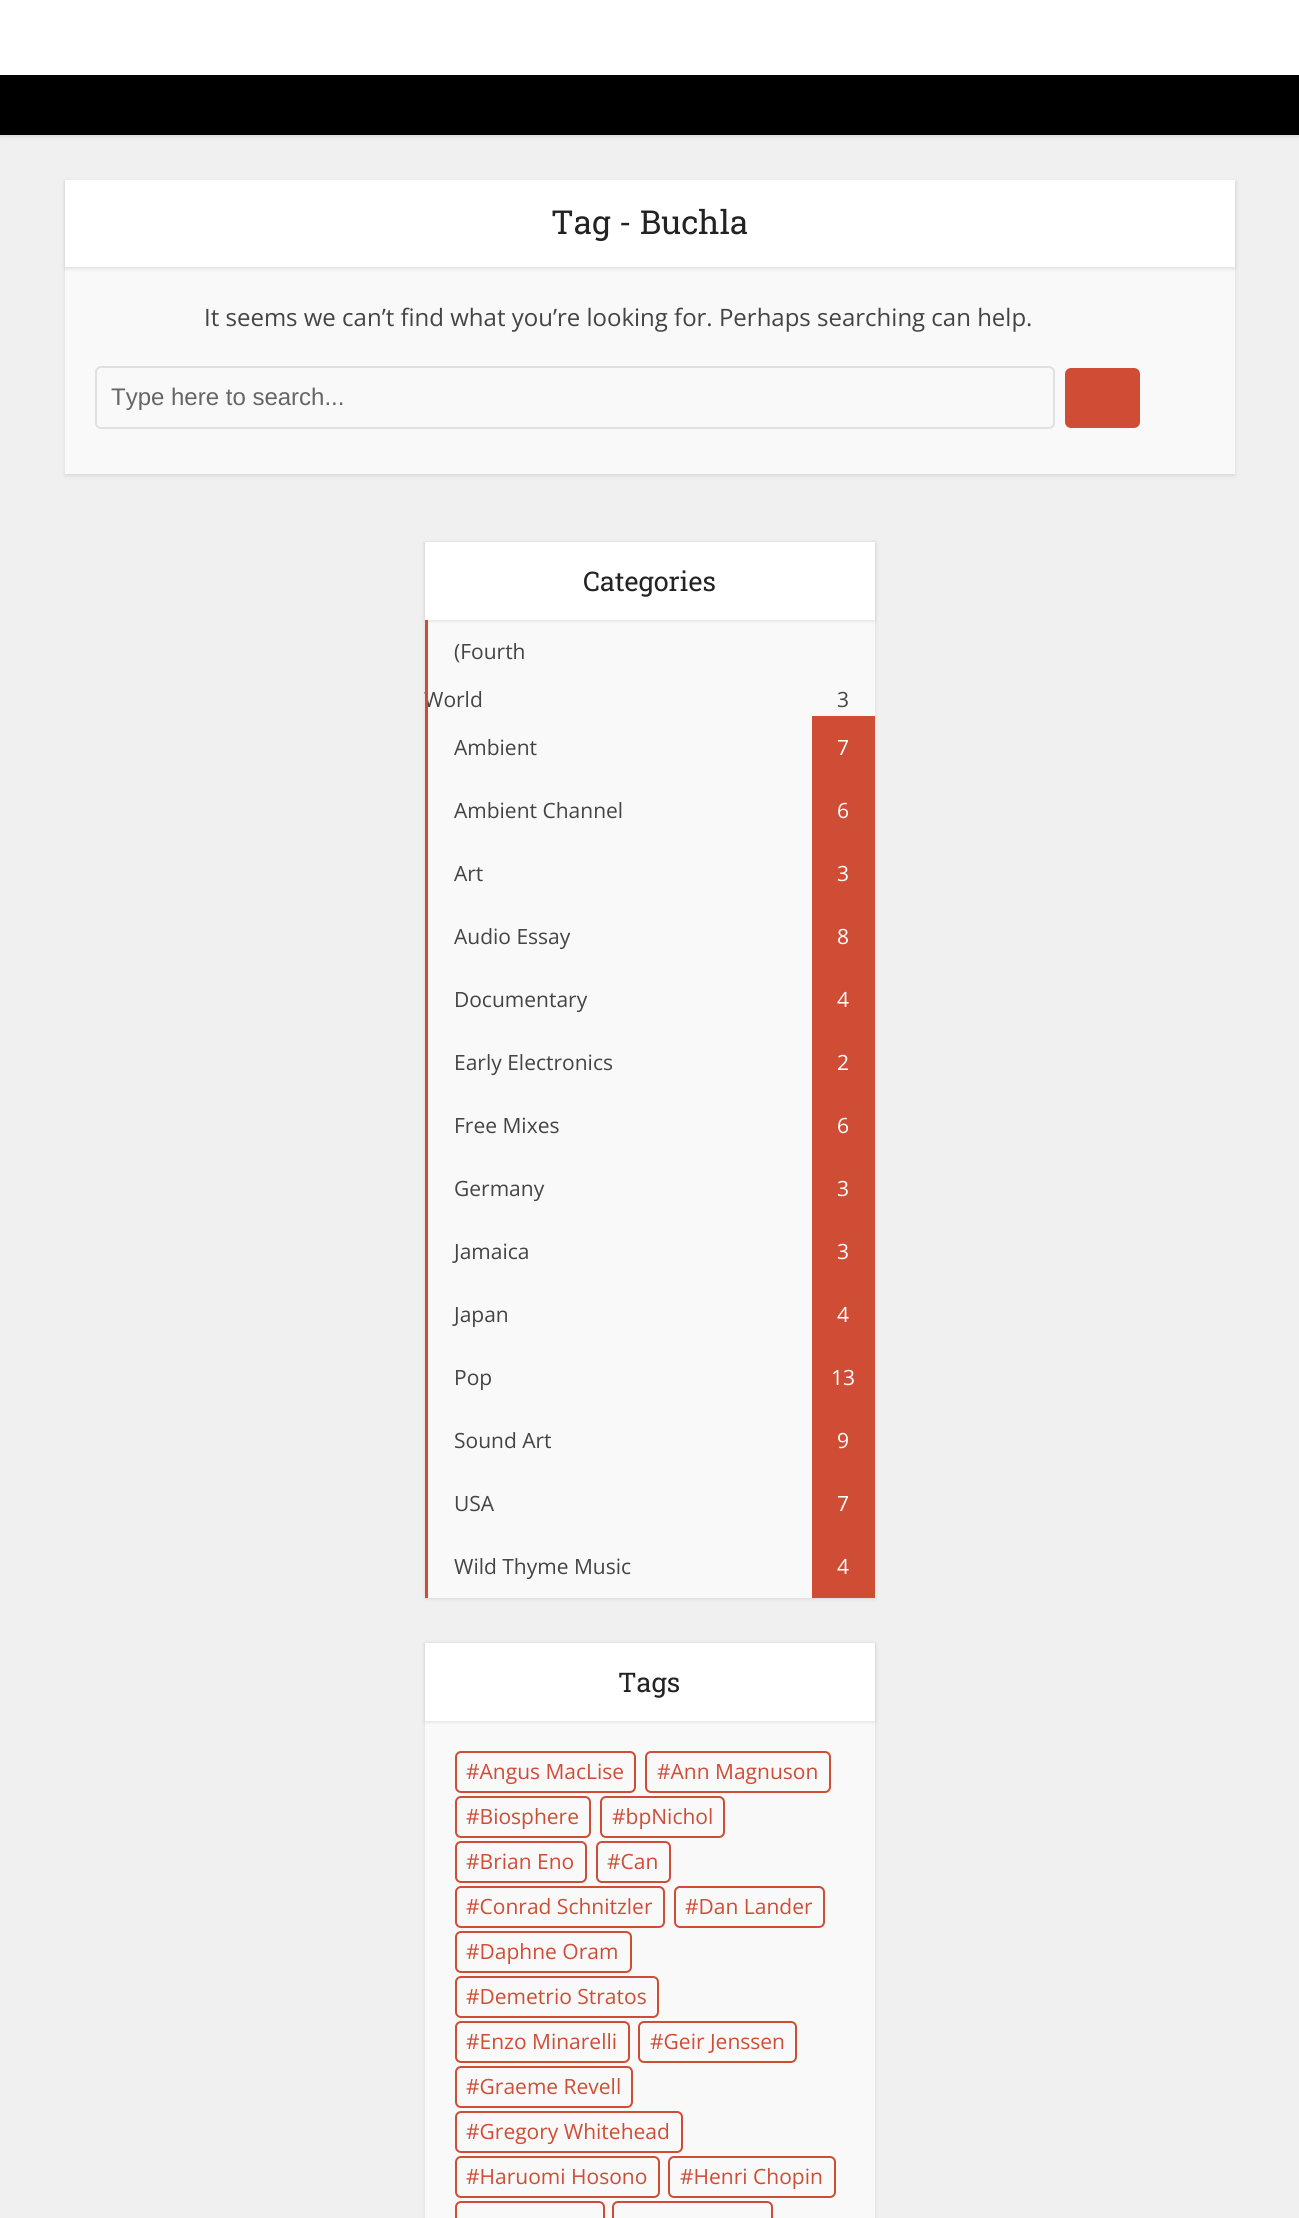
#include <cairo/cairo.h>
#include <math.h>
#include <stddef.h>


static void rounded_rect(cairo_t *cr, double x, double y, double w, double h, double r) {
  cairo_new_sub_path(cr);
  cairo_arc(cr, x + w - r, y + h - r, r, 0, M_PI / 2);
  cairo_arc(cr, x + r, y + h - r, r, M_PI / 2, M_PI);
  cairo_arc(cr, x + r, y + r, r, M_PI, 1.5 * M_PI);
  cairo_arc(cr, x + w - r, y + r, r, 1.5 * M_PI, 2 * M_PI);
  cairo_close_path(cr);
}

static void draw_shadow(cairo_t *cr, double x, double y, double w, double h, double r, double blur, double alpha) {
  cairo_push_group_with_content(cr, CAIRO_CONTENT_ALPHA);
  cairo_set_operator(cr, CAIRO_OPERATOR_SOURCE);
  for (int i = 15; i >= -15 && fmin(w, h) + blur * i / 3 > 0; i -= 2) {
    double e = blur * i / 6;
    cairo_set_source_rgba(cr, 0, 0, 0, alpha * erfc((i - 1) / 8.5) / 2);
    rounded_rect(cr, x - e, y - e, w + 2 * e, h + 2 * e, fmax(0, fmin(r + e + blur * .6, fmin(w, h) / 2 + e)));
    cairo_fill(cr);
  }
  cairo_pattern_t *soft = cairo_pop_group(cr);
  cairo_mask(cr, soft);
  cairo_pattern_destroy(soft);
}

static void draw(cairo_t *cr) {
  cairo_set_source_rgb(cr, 240 / 255.0, 240 / 255.0, 240 / 255.0);
  cairo_paint(cr);
  cairo_set_source_rgb(cr, 0, 0, 0);
  draw_shadow(cr, 0, 2, 1299, 135, 0, 2, 0.1);
  cairo_set_source_rgb(cr, 1, 1, 1);
  cairo_rectangle(cr, 0, 0, 1299, 75);
  cairo_fill(cr);
  cairo_set_source_rgb(cr, 0, 0, 0);
  cairo_rectangle(cr, 0, 75, 1299, 60);
  cairo_fill(cr);
  cairo_set_source_rgb(cr, 0, 0, 0);
  draw_shadow(cr, 65, 182, 1170, 294, 0, 2, 0.1);
  cairo_set_source_rgb(cr, 249 / 255.0, 249 / 255.0, 249 / 255.0);
  cairo_rectangle(cr, 65, 267, 1170, 207);
  cairo_fill(cr);
  cairo_set_source_rgb(cr, 0, 0, 0);
  draw_shadow(cr, 65, 182, 1170, 87, 0, 2, 0.1);
  cairo_set_source_rgb(cr, 1, 1, 1);
  cairo_rectangle(cr, 65, 180, 1170, 87);
  cairo_fill(cr);
  rounded_rect(cr, 96, 367, 958, 61, 5);
  cairo_set_source_rgb(cr, 224 / 255.0, 224 / 255.0, 224 / 255.0);
  cairo_stroke(cr);
  cairo_set_source_rgb(cr, 207 / 255.0, 77 / 255.0, 53 / 255.0);
  rounded_rect(cr, 1065, 368, 75, 60, 6);
  cairo_fill(cr);
  cairo_set_source_rgb(cr, 0, 0, 0);
  draw_shadow(cr, 425, 543, 450, 1056, 0, 2, 0.1);
  cairo_set_source_rgb(cr, 249 / 255.0, 249 / 255.0, 249 / 255.0);
  cairo_rectangle(cr, 428, 620, 447, 978);
  cairo_fill(cr);
  cairo_set_source_rgb(cr, 0, 0, 0);
  draw_shadow(cr, 425, 543, 450, 78, 0, 2, 0.1);
  cairo_set_source_rgb(cr, 1, 1, 1);
  cairo_rectangle(cr, 425, 542, 450, 78);
  cairo_fill(cr);
  cairo_set_source_rgb(cr, 207 / 255.0, 77 / 255.0, 53 / 255.0);
  cairo_rectangle(cr, 812, 716, 63, 882);
  cairo_fill(cr);
  cairo_set_source_rgb(cr, 0, 0, 0);
  draw_shadow(cr, 425, 1644, 450, 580, 0, 2, 0.1);
  cairo_set_source_rgb(cr, 249 / 255.0, 249 / 255.0, 249 / 255.0);
  cairo_rectangle(cr, 425, 1721, 450, 497);
  cairo_fill(cr);
  cairo_set_source_rgb(cr, 0, 0, 0);
  draw_shadow(cr, 425, 1644, 450, 78, 0, 2, 0.1);
  cairo_set_source_rgb(cr, 1, 1, 1);
  cairo_rectangle(cr, 425, 1643, 450, 78);
  cairo_fill(cr);
  rounded_rect(cr, 456, 1752, 179, 40, 5);
  cairo_set_source_rgb(cr, 207 / 255.0, 77 / 255.0, 53 / 255.0);
  cairo_stroke(cr);
  rounded_rect(cr, 646, 1752, 184, 40, 5);
  cairo_stroke(cr);
  rounded_rect(cr, 456, 1797, 134, 40, 5);
  cairo_stroke(cr);
  rounded_rect(cr, 601, 1797, 123, 40, 5);
  cairo_stroke(cr);
  rounded_rect(cr, 456, 1842, 130, 40, 5);
  cairo_stroke(cr);
  rounded_rect(cr, 597, 1842, 73, 40, 5);
  cairo_stroke(cr);
  rounded_rect(cr, 456, 1887, 208, 40, 5);
  cairo_stroke(cr);
  rounded_rect(cr, 675, 1887, 149, 40, 5);
  cairo_stroke(cr);
  rounded_rect(cr, 456, 1932, 175, 40, 5);
  cairo_stroke(cr);
  rounded_rect(cr, 456, 1977, 202, 40, 5);
  cairo_stroke(cr);
  rounded_rect(cr, 456, 2022, 173, 40, 5);
  cairo_stroke(cr);
  rounded_rect(cr, 639, 2022, 157, 40, 5);
  cairo_stroke(cr);
  rounded_rect(cr, 456, 2067, 176, 40, 5);
  cairo_stroke(cr);
  rounded_rect(cr, 456, 2112, 226, 40, 5);
  cairo_stroke(cr);
  rounded_rect(cr, 456, 2157, 203, 40, 5);
  cairo_stroke(cr);
  rounded_rect(cr, 669, 2157, 166, 40, 5);
  cairo_stroke(cr);
  rounded_rect(cr, 456, 2202, 148, 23, 5);
  cairo_stroke(cr);
  rounded_rect(cr, 613, 2202, 159, 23, 5);
  cairo_stroke(cr);
  cairo_select_font_face(cr, "Roboto Slab", CAIRO_FONT_SLANT_NORMAL, CAIRO_FONT_WEIGHT_NORMAL);
  cairo_set_font_size(cr, 33);
  cairo_set_source_rgb(cr, 35 / 255.0, 35 / 255.0, 35 / 255.0);
  cairo_move_to(cr, 551, 234);
  cairo_show_text(cr, "Tag - Buchla");
  cairo_select_font_face(cr, "Open Sans", CAIRO_FONT_SLANT_NORMAL, CAIRO_FONT_WEIGHT_NORMAL);
  cairo_set_font_size(cr, 24);
  cairo_set_source_rgb(cr, 68 / 255.0, 68 / 255.0, 68 / 255.0);
  cairo_move_to(cr, 204, 326);
  cairo_show_text(cr, "It seems we can’t find what you’re looking for. Perhaps searching can help.");
  cairo_select_font_face(cr, "Liberation Sans", CAIRO_FONT_SLANT_NORMAL, CAIRO_FONT_WEIGHT_NORMAL);
  cairo_set_source_rgb(cr, 102 / 255.0, 102 / 255.0, 102 / 255.0);
  cairo_move_to(cr, 111, 405);
  cairo_show_text(cr, "Type here to search...");
  cairo_select_font_face(cr, "Roboto Slab", CAIRO_FONT_SLANT_NORMAL, CAIRO_FONT_WEIGHT_NORMAL);
  cairo_set_font_size(cr, 27);
  cairo_set_source_rgb(cr, 35 / 255.0, 35 / 255.0, 35 / 255.0);
  cairo_move_to(cr, 583, 591);
  cairo_show_text(cr, "Categories");
  cairo_select_font_face(cr, "Open Sans", CAIRO_FONT_SLANT_NORMAL, CAIRO_FONT_WEIGHT_NORMAL);
  cairo_set_font_size(cr, 21);
  cairo_set_source_rgb(cr, 68 / 255.0, 68 / 255.0, 68 / 255.0);
  cairo_move_to(cr, 454, 659);
  cairo_show_text(cr, "(Fourth");
  cairo_move_to(cr, 424, 707);
  cairo_show_text(cr, "World");
  cairo_set_source_rgb(cr, 207 / 255.0, 77 / 255.0, 53 / 255.0);
  cairo_rectangle(cr, 425, 620, 3, 978);
  cairo_fill(cr);
  cairo_set_source_rgb(cr, 68 / 255.0, 68 / 255.0, 68 / 255.0);
  cairo_move_to(cr, 837, 707);
  cairo_show_text(cr, "3");
  cairo_move_to(cr, 454, 755);
  cairo_show_text(cr, "Ambient");
  cairo_set_source_rgb(cr, 1, 1, 1);
  cairo_move_to(cr, 837, 755);
  cairo_show_text(cr, "7");
  cairo_set_source_rgb(cr, 68 / 255.0, 68 / 255.0, 68 / 255.0);
  cairo_move_to(cr, 454, 818);
  cairo_show_text(cr, "Ambient Channel");
  cairo_set_source_rgb(cr, 1, 1, 1);
  cairo_move_to(cr, 837, 818);
  cairo_show_text(cr, "6");
  cairo_set_source_rgb(cr, 68 / 255.0, 68 / 255.0, 68 / 255.0);
  cairo_move_to(cr, 454, 881);
  cairo_show_text(cr, "Art");
  cairo_set_source_rgb(cr, 1, 1, 1);
  cairo_move_to(cr, 837, 881);
  cairo_show_text(cr, "3");
  cairo_set_source_rgb(cr, 68 / 255.0, 68 / 255.0, 68 / 255.0);
  cairo_move_to(cr, 454, 944);
  cairo_show_text(cr, "Audio Essay");
  cairo_set_source_rgb(cr, 1, 1, 1);
  cairo_move_to(cr, 837, 944);
  cairo_show_text(cr, "8");
  cairo_set_source_rgb(cr, 68 / 255.0, 68 / 255.0, 68 / 255.0);
  cairo_move_to(cr, 454, 1007);
  cairo_show_text(cr, "Documentary");
  cairo_set_source_rgb(cr, 1, 1, 1);
  cairo_move_to(cr, 837, 1007);
  cairo_show_text(cr, "4");
  cairo_set_source_rgb(cr, 68 / 255.0, 68 / 255.0, 68 / 255.0);
  cairo_move_to(cr, 454, 1070);
  cairo_show_text(cr, "Early Electronics");
  cairo_set_source_rgb(cr, 1, 1, 1);
  cairo_move_to(cr, 837, 1070);
  cairo_show_text(cr, "2");
  cairo_set_source_rgb(cr, 68 / 255.0, 68 / 255.0, 68 / 255.0);
  cairo_move_to(cr, 454, 1133);
  cairo_show_text(cr, "Free Mixes");
  cairo_set_source_rgb(cr, 1, 1, 1);
  cairo_move_to(cr, 837, 1133);
  cairo_show_text(cr, "6");
  cairo_set_source_rgb(cr, 68 / 255.0, 68 / 255.0, 68 / 255.0);
  cairo_move_to(cr, 454, 1196);
  cairo_show_text(cr, "Germany");
  cairo_set_source_rgb(cr, 1, 1, 1);
  cairo_move_to(cr, 837, 1196);
  cairo_show_text(cr, "3");
  cairo_set_source_rgb(cr, 68 / 255.0, 68 / 255.0, 68 / 255.0);
  cairo_move_to(cr, 454, 1259);
  cairo_show_text(cr, "Jamaica");
  cairo_set_source_rgb(cr, 1, 1, 1);
  cairo_move_to(cr, 837, 1259);
  cairo_show_text(cr, "3");
  cairo_set_source_rgb(cr, 68 / 255.0, 68 / 255.0, 68 / 255.0);
  cairo_move_to(cr, 454, 1322);
  cairo_show_text(cr, "Japan");
  cairo_set_source_rgb(cr, 1, 1, 1);
  cairo_move_to(cr, 837, 1322);
  cairo_show_text(cr, "4");
  cairo_set_source_rgb(cr, 68 / 255.0, 68 / 255.0, 68 / 255.0);
  cairo_move_to(cr, 454, 1385);
  cairo_show_text(cr, "Pop");
  cairo_set_source_rgb(cr, 1, 1, 1);
  cairo_move_to(cr, 831, 1385);
  cairo_show_text(cr, "13");
  cairo_set_source_rgb(cr, 68 / 255.0, 68 / 255.0, 68 / 255.0);
  cairo_move_to(cr, 454, 1448);
  cairo_show_text(cr, "Sound Art");
  cairo_set_source_rgb(cr, 1, 1, 1);
  cairo_move_to(cr, 837, 1448);
  cairo_show_text(cr, "9");
  cairo_set_source_rgb(cr, 68 / 255.0, 68 / 255.0, 68 / 255.0);
  cairo_move_to(cr, 454, 1511);
  cairo_show_text(cr, "USA");
  cairo_set_source_rgb(cr, 1, 1, 1);
  cairo_move_to(cr, 837, 1511);
  cairo_show_text(cr, "7");
  cairo_set_source_rgb(cr, 68 / 255.0, 68 / 255.0, 68 / 255.0);
  cairo_move_to(cr, 454, 1574);
  cairo_show_text(cr, "Wild Thyme Music");
  cairo_set_source_rgb(cr, 1, 1, 1);
  cairo_move_to(cr, 837, 1574);
  cairo_show_text(cr, "4");
  cairo_select_font_face(cr, "Roboto Slab", CAIRO_FONT_SLANT_NORMAL, CAIRO_FONT_WEIGHT_NORMAL);
  cairo_set_font_size(cr, 27);
  cairo_set_source_rgb(cr, 35 / 255.0, 35 / 255.0, 35 / 255.0);
  cairo_move_to(cr, 618, 1692);
  cairo_show_text(cr, "Tags");
  cairo_select_font_face(cr, "Open Sans", CAIRO_FONT_SLANT_NORMAL, CAIRO_FONT_WEIGHT_NORMAL);
  cairo_set_font_size(cr, 21);
  cairo_set_source_rgb(cr, 207 / 255.0, 77 / 255.0, 53 / 255.0);
  cairo_move_to(cr, 466, 1779);
  cairo_show_text(cr, "#Angus MacLise");
  cairo_move_to(cr, 657, 1779);
  cairo_show_text(cr, "#Ann Magnuson");
  cairo_move_to(cr, 466, 1824);
  cairo_show_text(cr, "#Biosphere");
  cairo_move_to(cr, 612, 1824);
  cairo_show_text(cr, "#bpNichol");
  cairo_move_to(cr, 466, 1869);
  cairo_show_text(cr, "#Brian Eno");
  cairo_move_to(cr, 607, 1869);
  cairo_show_text(cr, "#Can");
  cairo_move_to(cr, 466, 1914);
  cairo_show_text(cr, "#Conrad Schnitzler");
  cairo_move_to(cr, 685, 1914);
  cairo_show_text(cr, "#Dan Lander");
  cairo_move_to(cr, 466, 1959);
  cairo_show_text(cr, "#Daphne Oram");
  cairo_move_to(cr, 466, 2004);
  cairo_show_text(cr, "#Demetrio Stratos");
  cairo_move_to(cr, 466, 2049);
  cairo_show_text(cr, "#Enzo Minarelli");
  cairo_move_to(cr, 650, 2049);
  cairo_show_text(cr, "#Geir Jenssen");
  cairo_move_to(cr, 466, 2094);
  cairo_show_text(cr, "#Graeme Revell");
  cairo_move_to(cr, 466, 2139);
  cairo_show_text(cr, "#Gregory Whitehead");
  cairo_move_to(cr, 466, 2184);
  cairo_show_text(cr, "#Haruomi Hosono");
  cairo_move_to(cr, 680, 2184);
  cairo_show_text(cr, "#Henri Chopin");
}

int main(void) {
  cairo_surface_t *surface = cairo_image_surface_create(CAIRO_FORMAT_RGB24, 1299, 2218);
  cairo_t *cr = cairo_create(surface);
  cairo_font_options_t *options = cairo_font_options_create();
  cairo_font_options_set_hint_metrics(options, CAIRO_HINT_METRICS_OFF);
  cairo_font_options_set_hint_style(options, CAIRO_HINT_STYLE_NONE);
  cairo_set_font_options(cr, options);
  cairo_set_miter_limit(cr, 4);
  draw(cr);
  cairo_surface_write_to_png(surface, "out.png");
  cairo_font_options_destroy(options);
  cairo_destroy(cr);
  cairo_surface_destroy(surface);
  return 0;
}
